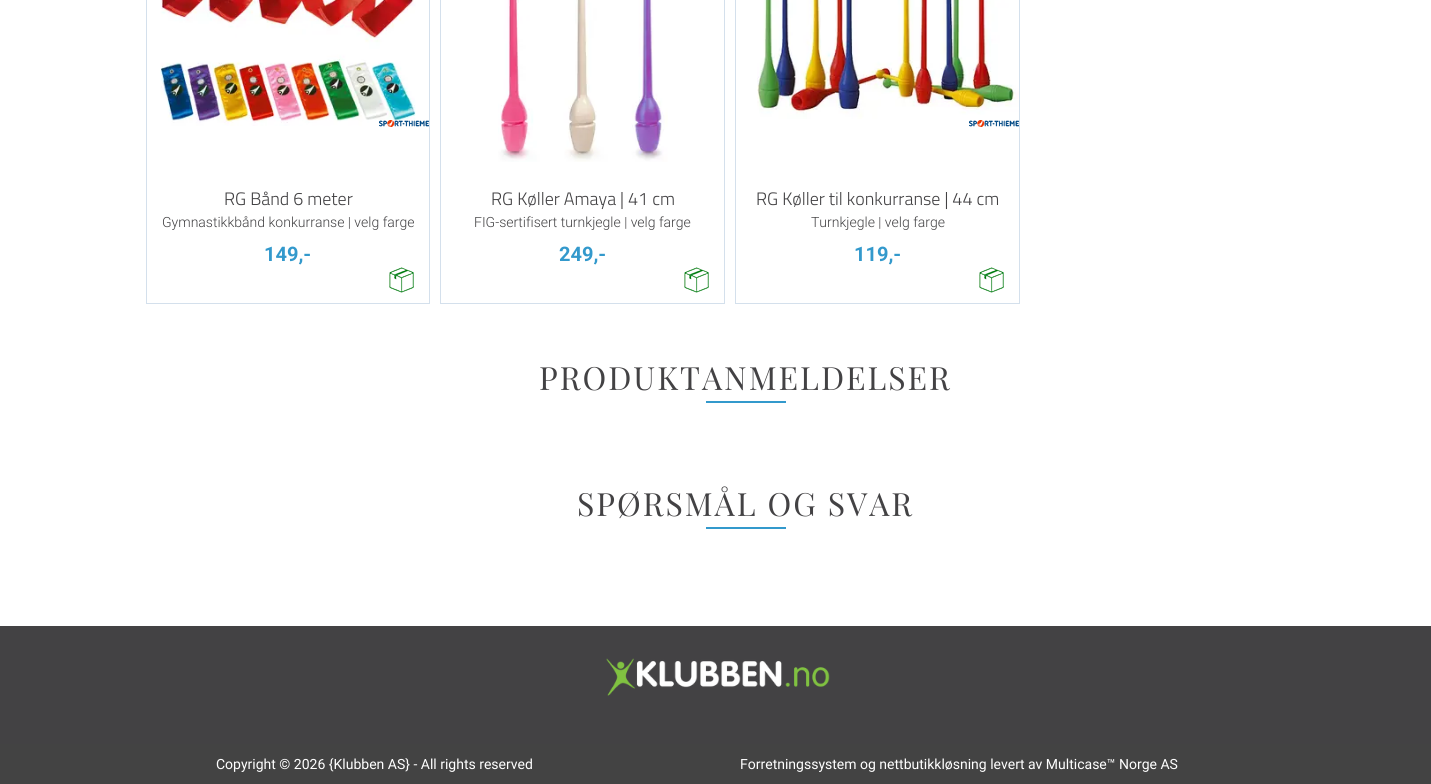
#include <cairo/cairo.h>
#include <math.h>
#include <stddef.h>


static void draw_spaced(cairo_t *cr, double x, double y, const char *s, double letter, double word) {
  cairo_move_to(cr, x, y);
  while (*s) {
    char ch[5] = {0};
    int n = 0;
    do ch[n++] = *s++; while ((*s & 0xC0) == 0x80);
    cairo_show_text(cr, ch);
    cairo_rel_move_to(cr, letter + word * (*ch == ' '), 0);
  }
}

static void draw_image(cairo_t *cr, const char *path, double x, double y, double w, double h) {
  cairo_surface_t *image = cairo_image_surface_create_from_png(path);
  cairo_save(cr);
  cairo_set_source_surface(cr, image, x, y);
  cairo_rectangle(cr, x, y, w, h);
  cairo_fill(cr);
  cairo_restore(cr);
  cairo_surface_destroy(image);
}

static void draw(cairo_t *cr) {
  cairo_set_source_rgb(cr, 1, 1, 1);
  cairo_paint(cr);
  cairo_rectangle(cr, 146.5, -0.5, 283, 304);
  cairo_set_source_rgb(cr, 212 / 255.0, 224 / 255.0, 236 / 255.0);
  cairo_set_line_width(cr, 1);
  cairo_stroke(cr);
  draw_image(cr, "images/1.png", 160, 0, 256, 126);
  draw_image(cr, "images/2.png", 379, 120, 50, 7);
  draw_image(cr, "images/3.png", 389, 267, 25, 26);
  cairo_rectangle(cr, 440.5, -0.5, 284, 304);
  cairo_stroke(cr);
  draw_image(cr, "images/4.png", 498, 0, 170, 162);
  draw_image(cr, "images/3.png", 684, 267, 25, 26);
  cairo_rectangle(cr, 735.5, -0.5, 284, 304);
  cairo_stroke(cr);
  draw_image(cr, "images/5.png", 757, 0, 262, 119);
  draw_image(cr, "images/6.png", 969, 120, 50, 7);
  draw_image(cr, "images/3.png", 979, 267, 25, 26);
  cairo_set_source_rgb(cr, 51 / 255.0, 153 / 255.0, 204 / 255.0);
  cairo_rectangle(cr, 706, 401, 80, 2);
  cairo_fill(cr);
  cairo_rectangle(cr, 706, 527, 80, 2);
  cairo_fill(cr);
  cairo_set_source_rgb(cr, 67 / 255.0, 66 / 255.0, 68 / 255.0);
  cairo_rectangle(cr, 0, 626, 1431, 118);
  cairo_fill(cr);
  draw_image(cr, "images/7.png", 606, 658, 224, 38);
  cairo_set_source_rgb(cr, 67 / 255.0, 67 / 255.0, 67 / 255.0);
  cairo_rectangle(cr, 0, 744, 1431, 40);
  cairo_fill(cr);
  cairo_select_font_face(cr, "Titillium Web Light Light", CAIRO_FONT_SLANT_NORMAL, CAIRO_FONT_WEIGHT_NORMAL);
  cairo_set_font_size(cr, 18);
  cairo_set_source_rgb(cr, 67 / 255.0, 66 / 255.0, 68 / 255.0);
  cairo_move_to(cr, 224, 205);
  cairo_show_text(cr, "RG Bånd 6 meter");
  cairo_select_font_face(cr, "Roboto Light", CAIRO_FONT_SLANT_NORMAL, CAIRO_FONT_WEIGHT_NORMAL);
  cairo_set_font_size(cr, 14);
  cairo_move_to(cr, 162, 227);
  cairo_show_text(cr, "Gymnastikkbånd konkurranse | velg farge");
  cairo_select_font_face(cr, "Roboto", CAIRO_FONT_SLANT_NORMAL, CAIRO_FONT_WEIGHT_BOLD);
  cairo_set_font_size(cr, 20);
  cairo_set_source_rgb(cr, 51 / 255.0, 153 / 255.0, 204 / 255.0);
  cairo_move_to(cr, 264, 261);
  cairo_show_text(cr, "149,-");
  cairo_select_font_face(cr, "Titillium Web Light Light", CAIRO_FONT_SLANT_NORMAL, CAIRO_FONT_WEIGHT_NORMAL);
  cairo_set_font_size(cr, 18);
  cairo_set_source_rgb(cr, 67 / 255.0, 66 / 255.0, 68 / 255.0);
  cairo_move_to(cr, 491, 205);
  cairo_show_text(cr, "RG Køller Amaya | 41 cm");
  cairo_select_font_face(cr, "Roboto Light", CAIRO_FONT_SLANT_NORMAL, CAIRO_FONT_WEIGHT_NORMAL);
  cairo_set_font_size(cr, 14);
  cairo_move_to(cr, 474, 227);
  cairo_show_text(cr, "FIG-sertifisert turnkjegle | velg farge");
  cairo_select_font_face(cr, "Roboto", CAIRO_FONT_SLANT_NORMAL, CAIRO_FONT_WEIGHT_BOLD);
  cairo_set_font_size(cr, 20);
  cairo_set_source_rgb(cr, 51 / 255.0, 153 / 255.0, 204 / 255.0);
  cairo_move_to(cr, 559, 261);
  cairo_show_text(cr, "249,-");
  cairo_select_font_face(cr, "Titillium Web Light Light", CAIRO_FONT_SLANT_NORMAL, CAIRO_FONT_WEIGHT_NORMAL);
  cairo_set_font_size(cr, 18);
  cairo_set_source_rgb(cr, 67 / 255.0, 66 / 255.0, 68 / 255.0);
  cairo_move_to(cr, 756, 205);
  cairo_show_text(cr, "RG Køller til konkurranse | 44 cm");
  cairo_select_font_face(cr, "Roboto Light", CAIRO_FONT_SLANT_NORMAL, CAIRO_FONT_WEIGHT_NORMAL);
  cairo_set_font_size(cr, 14);
  cairo_move_to(cr, 811, 227);
  cairo_show_text(cr, "Turnkjegle | velg farge");
  cairo_select_font_face(cr, "Roboto", CAIRO_FONT_SLANT_NORMAL, CAIRO_FONT_WEIGHT_BOLD);
  cairo_set_font_size(cr, 20);
  cairo_set_source_rgb(cr, 51 / 255.0, 153 / 255.0, 204 / 255.0);
  cairo_move_to(cr, 854, 261);
  cairo_show_text(cr, "119,-");
  cairo_select_font_face(cr, "Playfair Display", CAIRO_FONT_SLANT_NORMAL, CAIRO_FONT_WEIGHT_NORMAL);
  cairo_set_font_size(cr, 32);
  cairo_set_source_rgb(cr, 67 / 255.0, 66 / 255.0, 68 / 255.0);
  draw_spaced(cr, 539, 390, "PRODUKTANMELDELSER", 2, 0);
  draw_spaced(cr, 577, 516, "SPØRSMÅL OG SVAR", 2, 0);
  cairo_select_font_face(cr, "Roboto", CAIRO_FONT_SLANT_NORMAL, CAIRO_FONT_WEIGHT_NORMAL);
  cairo_set_font_size(cr, 14);
  cairo_set_source_rgb(cr, 1, 1, 1);
  cairo_move_to(cr, 216, 769);
  cairo_show_text(cr, "Copyright © 2026 {Klubben AS} - All rights reserved");
  cairo_move_to(cr, 740, 769);
  cairo_show_text(cr, "Forretningssystem og nettbutikkløsning levert av Multicase™ Norge AS");
}

int main(void) {
  cairo_surface_t *surface = cairo_image_surface_create(CAIRO_FORMAT_RGB24, 1431, 784);
  cairo_t *cr = cairo_create(surface);
  cairo_font_options_t *options = cairo_font_options_create();
  cairo_font_options_set_hint_metrics(options, CAIRO_HINT_METRICS_OFF);
  cairo_font_options_set_hint_style(options, CAIRO_HINT_STYLE_NONE);
  cairo_set_font_options(cr, options);
  cairo_set_miter_limit(cr, 4);
  draw(cr);
  cairo_surface_write_to_png(surface, "out.png");
  cairo_font_options_destroy(options);
  cairo_destroy(cr);
  cairo_surface_destroy(surface);
  return 0;
}
